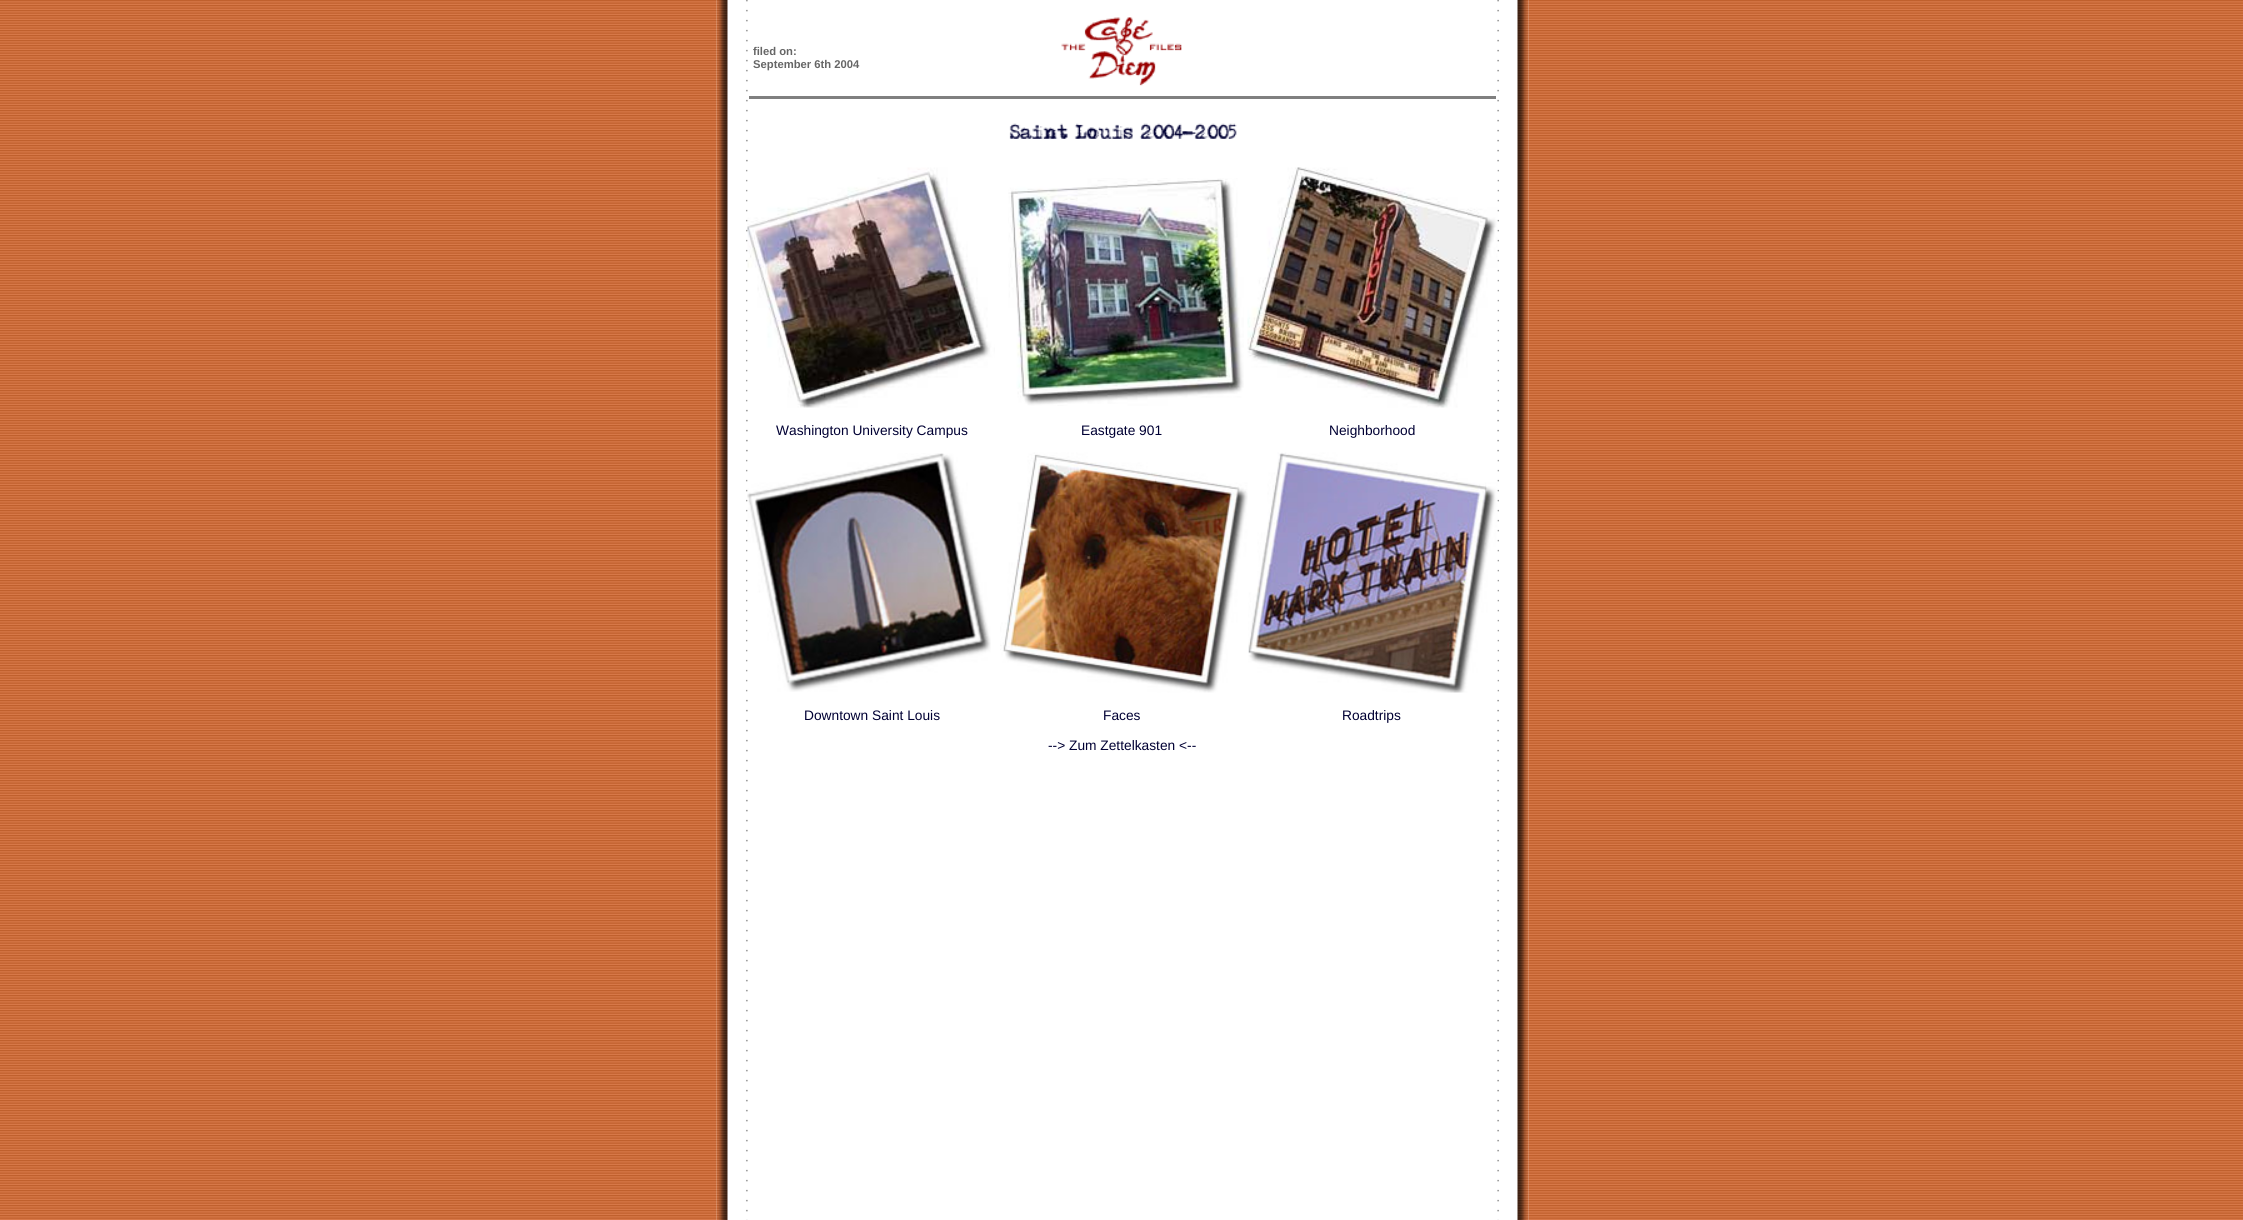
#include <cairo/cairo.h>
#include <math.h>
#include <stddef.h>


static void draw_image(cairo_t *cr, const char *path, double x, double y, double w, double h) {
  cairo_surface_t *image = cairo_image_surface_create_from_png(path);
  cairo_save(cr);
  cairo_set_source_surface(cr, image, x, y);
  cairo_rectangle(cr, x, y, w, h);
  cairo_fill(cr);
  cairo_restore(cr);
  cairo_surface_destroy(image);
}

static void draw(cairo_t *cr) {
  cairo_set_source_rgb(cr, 1, 1, 1);
  cairo_paint(cr);
  draw_image(cr, "images/1.png", 0, 0, 717, 1220);
  draw_image(cr, "images/2.png", 716, 0, 32, 1220);
  draw_image(cr, "images/3.png", 1061, 17, 121, 69);
  cairo_set_source_rgb(cr, 128 / 255.0, 128 / 255.0, 128 / 255.0);
  cairo_rectangle(cr, 749, 96, 747, 3);
  cairo_fill(cr);
  draw_image(cr, "images/4.png", 1009, 123, 228, 16);
  draw_image(cr, "images/5.png", 747, 167, 248, 241);
  draw_image(cr, "images/6.png", 1008, 178, 236, 228);
  draw_image(cr, "images/11.png", 1497, 0, 32, 1220);
  draw_image(cr, "images/7.png", 1247, 167, 251, 241);
  draw_image(cr, "images/8.png", 747, 453, 244, 239);
  draw_image(cr, "images/9.png", 1000, 452, 248, 241);
  draw_image(cr, "images/10.png", 1248, 452, 250, 241);
  draw_image(cr, "images/12.png", 1528, 0, 715, 1220);
  cairo_select_font_face(cr, "Liberation Sans", CAIRO_FONT_SLANT_NORMAL, CAIRO_FONT_WEIGHT_BOLD);
  cairo_set_font_size(cr, 11.25);
  cairo_set_source_rgb(cr, 102 / 255.0, 102 / 255.0, 102 / 255.0);
  cairo_move_to(cr, 753, 55);
  cairo_show_text(cr, "filed on:");
  cairo_move_to(cr, 753, 68);
  cairo_show_text(cr, "September 6th 2004");
  cairo_select_font_face(cr, "Liberation Sans", CAIRO_FONT_SLANT_NORMAL, CAIRO_FONT_WEIGHT_NORMAL);
  cairo_set_font_size(cr, 13.75);
  cairo_set_source_rgb(cr, 0, 0, 51 / 255.0);
  cairo_move_to(cr, 776, 435);
  cairo_show_text(cr, "Washington University Campus");
  cairo_move_to(cr, 1081, 435);
  cairo_show_text(cr, "Eastgate 901");
  cairo_move_to(cr, 1329, 435);
  cairo_show_text(cr, "Neighborhood");
  cairo_move_to(cr, 804, 720);
  cairo_show_text(cr, "Downtown Saint Louis");
  cairo_move_to(cr, 1103, 720);
  cairo_show_text(cr, "Faces");
  cairo_move_to(cr, 1342, 720);
  cairo_show_text(cr, "Roadtrips");
  cairo_move_to(cr, 1048, 750);
  cairo_show_text(cr, "--> Zum Zettelkasten <--");
}

int main(void) {
  cairo_surface_t *surface = cairo_image_surface_create(CAIRO_FORMAT_RGB24, 2243, 1220);
  cairo_t *cr = cairo_create(surface);
  cairo_font_options_t *options = cairo_font_options_create();
  cairo_font_options_set_hint_metrics(options, CAIRO_HINT_METRICS_OFF);
  cairo_font_options_set_hint_style(options, CAIRO_HINT_STYLE_NONE);
  cairo_set_font_options(cr, options);
  cairo_set_miter_limit(cr, 4);
  draw(cr);
  cairo_surface_write_to_png(surface, "out.png");
  cairo_font_options_destroy(options);
  cairo_destroy(cr);
  cairo_surface_destroy(surface);
  return 0;
}
